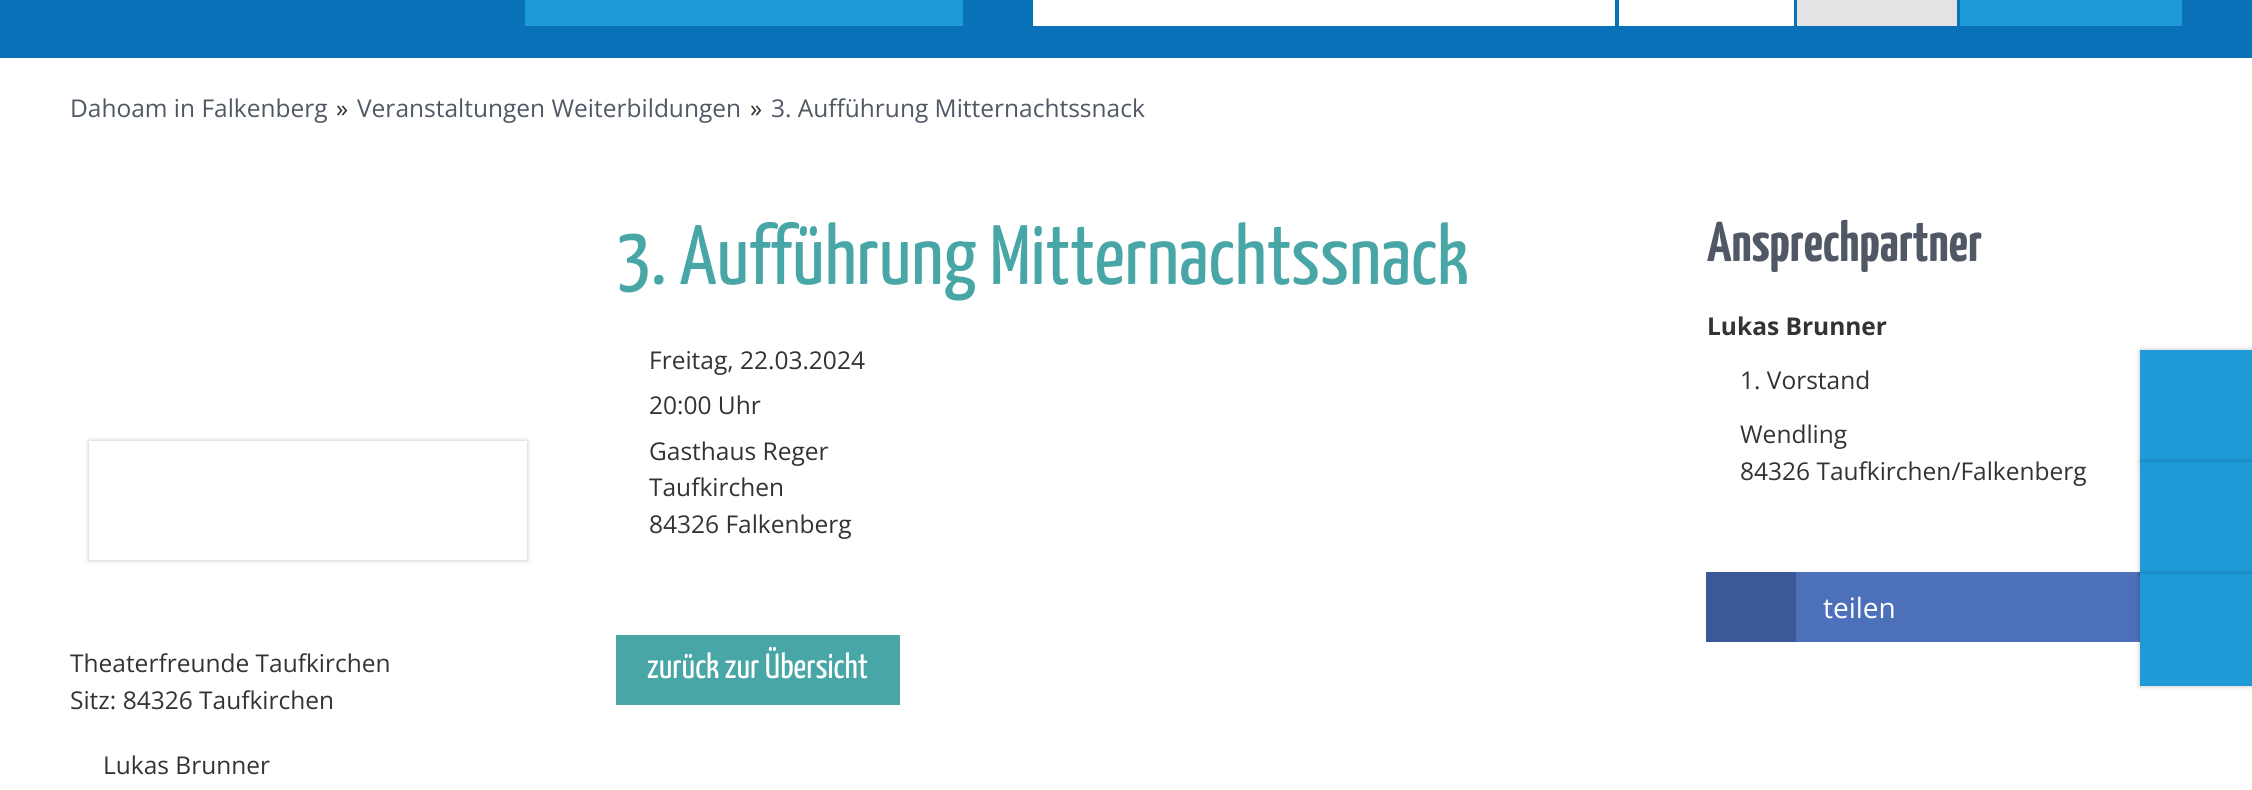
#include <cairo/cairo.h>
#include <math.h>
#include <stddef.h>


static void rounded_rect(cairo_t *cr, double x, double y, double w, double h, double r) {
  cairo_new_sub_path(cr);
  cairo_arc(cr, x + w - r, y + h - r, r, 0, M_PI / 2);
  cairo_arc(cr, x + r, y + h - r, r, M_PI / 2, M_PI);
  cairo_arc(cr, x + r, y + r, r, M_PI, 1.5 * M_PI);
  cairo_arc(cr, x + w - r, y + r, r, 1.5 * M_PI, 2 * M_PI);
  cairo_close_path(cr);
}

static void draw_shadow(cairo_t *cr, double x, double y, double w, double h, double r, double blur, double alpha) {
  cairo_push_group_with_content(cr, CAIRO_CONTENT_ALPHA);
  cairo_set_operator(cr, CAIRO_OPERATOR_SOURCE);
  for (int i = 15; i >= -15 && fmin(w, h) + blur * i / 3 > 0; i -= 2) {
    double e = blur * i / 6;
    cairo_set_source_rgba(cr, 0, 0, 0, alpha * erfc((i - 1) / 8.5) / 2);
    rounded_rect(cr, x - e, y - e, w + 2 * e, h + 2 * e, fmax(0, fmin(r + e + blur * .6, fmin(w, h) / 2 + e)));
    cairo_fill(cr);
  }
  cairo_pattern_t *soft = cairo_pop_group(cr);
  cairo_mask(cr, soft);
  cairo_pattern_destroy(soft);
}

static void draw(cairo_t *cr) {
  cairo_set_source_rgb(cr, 1, 1, 1);
  cairo_paint(cr);
  cairo_set_source_rgb(cr, 9 / 255.0, 113 / 255.0, 184 / 255.0);
  cairo_rectangle(cr, 0, 0, 2252, 58);
  cairo_fill(cr);
  cairo_set_source_rgb(cr, 30 / 255.0, 154 / 255.0, 214 / 255.0);
  cairo_rectangle(cr, 525, 0, 438, 26);
  cairo_fill(cr);
  cairo_set_source_rgb(cr, 1, 1, 1);
  cairo_rectangle(cr, 1033, 0, 582, 26);
  cairo_fill(cr);
  cairo_rectangle(cr, 1619, 0, 175, 26);
  cairo_fill(cr);
  cairo_set_source_rgb(cr, 225 / 255.0, 227 / 255.0, 229 / 255.0);
  cairo_rectangle(cr, 1797, 0, 160, 26);
  cairo_fill(cr);
  cairo_set_source_rgb(cr, 30 / 255.0, 154 / 255.0, 214 / 255.0);
  cairo_rectangle(cr, 1960, 0, 222, 26);
  cairo_fill(cr);
  cairo_set_source_rgb(cr, 73 / 255.0, 166 / 255.0, 166 / 255.0);
  cairo_rectangle(cr, 616, 635, 284, 70);
  cairo_fill(cr);
  cairo_set_source_rgb(cr, 76 / 255.0, 112 / 255.0, 186 / 255.0);
  cairo_rectangle(cr, 1796, 572, 344, 70);
  cairo_fill(cr);
  cairo_set_source_rgb(cr, 59 / 255.0, 89 / 255.0, 152 / 255.0);
  cairo_rectangle(cr, 1706, 572, 90, 70);
  cairo_fill(cr);
  cairo_set_source_rgb(cr, 0, 0, 0);
  draw_shadow(cr, 89, 441, 438, 119, 0, 2.5, 0.25);
  cairo_set_source_rgb(cr, 1, 1, 1);
  cairo_rectangle(cr, 89, 441, 438, 119);
  cairo_fill(cr);
  cairo_set_source_rgb(cr, 0, 0, 0);
  draw_shadow(cr, 2140, 350, 112, 112, 0, 2.5, 0.25);
  cairo_set_source_rgb(cr, 30 / 255.0, 154 / 255.0, 214 / 255.0);
  cairo_rectangle(cr, 2140, 350, 112, 112);
  cairo_fill(cr);
  cairo_set_source_rgb(cr, 0, 0, 0);
  draw_shadow(cr, 2140, 462, 112, 112, 0, 2.5, 0.25);
  cairo_set_source_rgb(cr, 30 / 255.0, 154 / 255.0, 214 / 255.0);
  cairo_rectangle(cr, 2140, 462, 112, 112);
  cairo_fill(cr);
  cairo_set_source_rgb(cr, 0, 0, 0);
  draw_shadow(cr, 2140, 574, 112, 112, 0, 2.5, 0.25);
  cairo_set_source_rgb(cr, 30 / 255.0, 154 / 255.0, 214 / 255.0);
  cairo_rectangle(cr, 2140, 574, 112, 112);
  cairo_fill(cr);
  cairo_select_font_face(cr, "Open Sans", CAIRO_FONT_SLANT_NORMAL, CAIRO_FONT_WEIGHT_NORMAL);
  cairo_set_font_size(cr, 24.5);
  cairo_set_source_rgb(cr, 79 / 255.0, 88 / 255.0, 100 / 255.0);
  cairo_move_to(cr, 70, 117);
  cairo_show_text(cr, "Dahoam in Falkenberg");
  cairo_set_source_rgb(cr, 51 / 255.0, 51 / 255.0, 51 / 255.0);
  cairo_move_to(cr, 336, 117);
  cairo_show_text(cr, "»");
  cairo_set_source_rgb(cr, 79 / 255.0, 88 / 255.0, 100 / 255.0);
  cairo_move_to(cr, 357, 117);
  cairo_show_text(cr, "Veranstaltungen Weiterbildungen");
  cairo_set_source_rgb(cr, 51 / 255.0, 51 / 255.0, 51 / 255.0);
  cairo_move_to(cr, 750, 117);
  cairo_show_text(cr, "»");
  cairo_set_source_rgb(cr, 79 / 255.0, 88 / 255.0, 100 / 255.0);
  cairo_move_to(cr, 771, 117);
  cairo_show_text(cr, "3. Aufführung Mitternachtssnack");
  cairo_select_font_face(cr, "Yanone Kaffeesatz", CAIRO_FONT_SLANT_NORMAL, CAIRO_FONT_WEIGHT_NORMAL);
  cairo_set_font_size(cr, 84);
  cairo_set_source_rgb(cr, 73 / 255.0, 166 / 255.0, 166 / 255.0);
  cairo_move_to(cr, 616, 284);
  cairo_show_text(cr, "3. Aufführung Mitternachtssnack");
  cairo_select_font_face(cr, "Open Sans", CAIRO_FONT_SLANT_NORMAL, CAIRO_FONT_WEIGHT_NORMAL);
  cairo_set_font_size(cr, 24.5);
  cairo_set_source_rgb(cr, 51 / 255.0, 51 / 255.0, 51 / 255.0);
  cairo_move_to(cr, 649, 369);
  cairo_show_text(cr, "Freitag, 22.03.2024");
  cairo_move_to(cr, 649, 414);
  cairo_show_text(cr, "20:00 Uhr");
  cairo_move_to(cr, 649, 460);
  cairo_show_text(cr, "Gasthaus Reger");
  cairo_move_to(cr, 649, 496);
  cairo_show_text(cr, "Taufkirchen");
  cairo_move_to(cr, 649, 533);
  cairo_show_text(cr, "84326 Falkenberg");
  cairo_select_font_face(cr, "Yanone Kaffeesatz", CAIRO_FONT_SLANT_NORMAL, CAIRO_FONT_WEIGHT_NORMAL);
  cairo_set_font_size(cr, 35);
  cairo_set_source_rgb(cr, 1, 1, 1);
  cairo_move_to(cr, 647, 678);
  cairo_show_text(cr, "zurück zur Übersicht");
  cairo_select_font_face(cr, "Yanone Kaffeesatz", CAIRO_FONT_SLANT_NORMAL, CAIRO_FONT_WEIGHT_BOLD);
  cairo_set_font_size(cr, 56);
  cairo_set_source_rgb(cr, 79 / 255.0, 88 / 255.0, 100 / 255.0);
  cairo_move_to(cr, 1707, 261);
  cairo_show_text(cr, "Ansprechpartner");
  cairo_select_font_face(cr, "Open Sans", CAIRO_FONT_SLANT_NORMAL, CAIRO_FONT_WEIGHT_BOLD);
  cairo_set_font_size(cr, 24.5);
  cairo_set_source_rgb(cr, 51 / 255.0, 51 / 255.0, 51 / 255.0);
  cairo_move_to(cr, 1707, 335);
  cairo_show_text(cr, "Lukas Brunner");
  cairo_select_font_face(cr, "Open Sans", CAIRO_FONT_SLANT_NORMAL, CAIRO_FONT_WEIGHT_NORMAL);
  cairo_move_to(cr, 1740, 389);
  cairo_show_text(cr, "1. Vorstand");
  cairo_move_to(cr, 1740, 443);
  cairo_show_text(cr, "Wendling");
  cairo_move_to(cr, 1740, 480);
  cairo_show_text(cr, "84326 Taufkirchen/Falkenberg");
  cairo_set_font_size(cr, 28);
  cairo_set_source_rgb(cr, 1, 1, 1);
  cairo_move_to(cr, 1823, 618);
  cairo_show_text(cr, "teilen");
  cairo_set_font_size(cr, 24.5);
  cairo_set_source_rgb(cr, 51 / 255.0, 51 / 255.0, 51 / 255.0);
  cairo_move_to(cr, 70, 672);
  cairo_show_text(cr, "Theaterfreunde Taufkirchen");
  cairo_move_to(cr, 70, 709);
  cairo_show_text(cr, "Sitz: 84326 Taufkirchen");
  cairo_move_to(cr, 103, 774);
  cairo_show_text(cr, "Lukas Brunner");
}

int main(void) {
  cairo_surface_t *surface = cairo_image_surface_create(CAIRO_FORMAT_RGB24, 2252, 790);
  cairo_t *cr = cairo_create(surface);
  cairo_font_options_t *options = cairo_font_options_create();
  cairo_font_options_set_hint_metrics(options, CAIRO_HINT_METRICS_OFF);
  cairo_font_options_set_hint_style(options, CAIRO_HINT_STYLE_NONE);
  cairo_set_font_options(cr, options);
  cairo_set_miter_limit(cr, 4);
  draw(cr);
  cairo_surface_write_to_png(surface, "out.png");
  cairo_font_options_destroy(options);
  cairo_destroy(cr);
  cairo_surface_destroy(surface);
  return 0;
}
